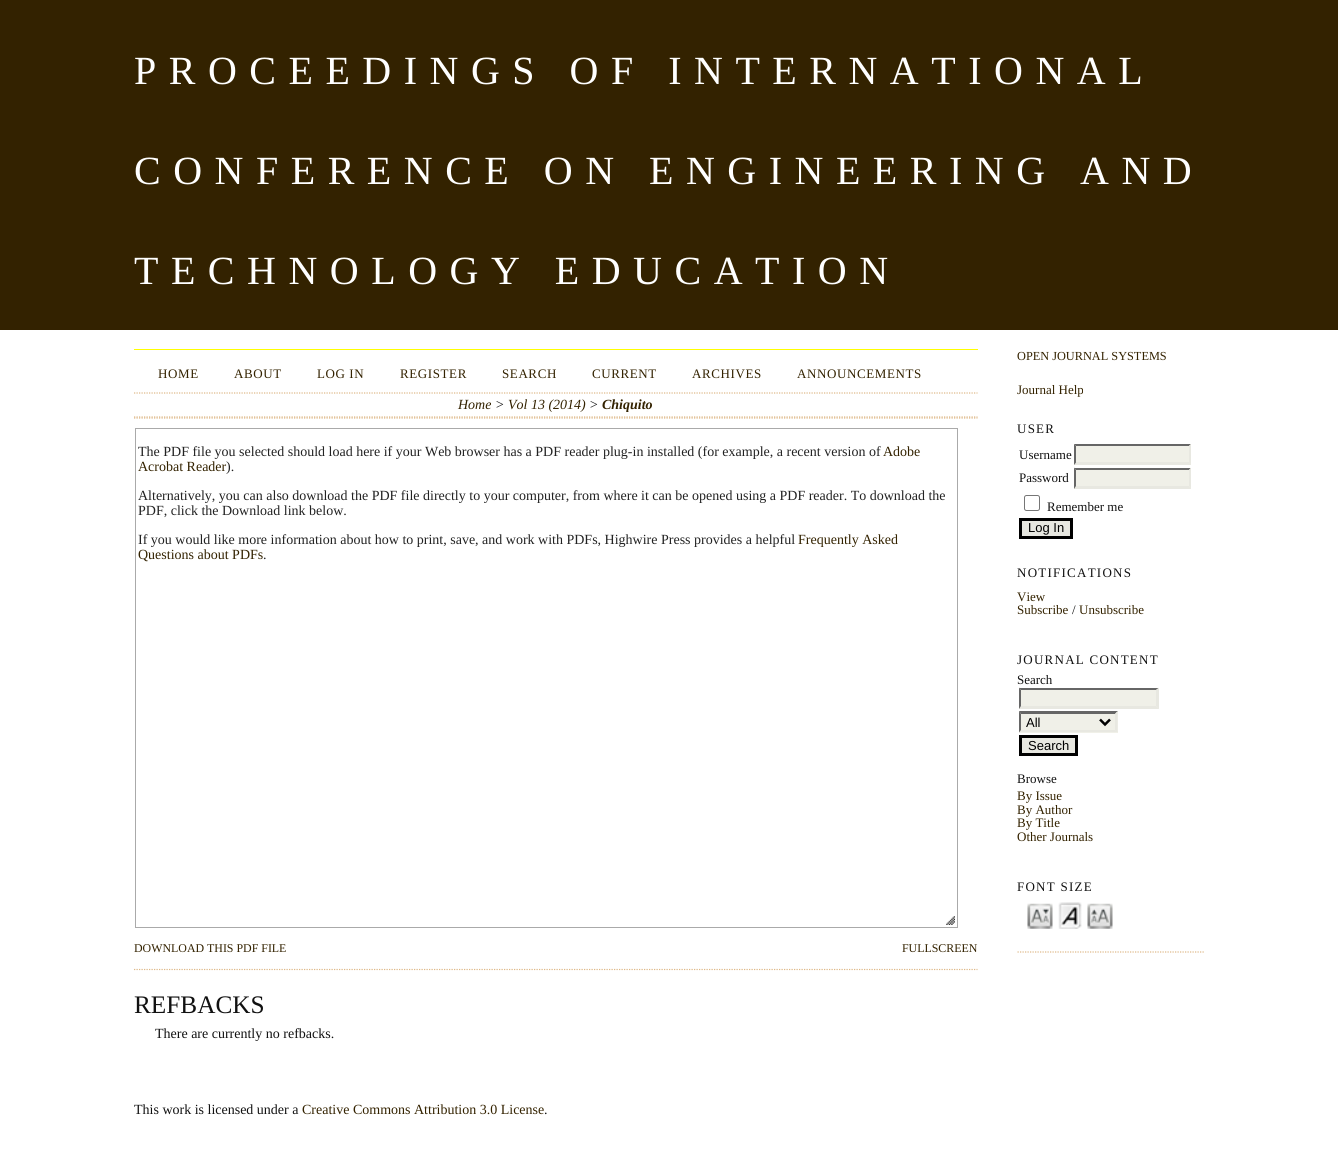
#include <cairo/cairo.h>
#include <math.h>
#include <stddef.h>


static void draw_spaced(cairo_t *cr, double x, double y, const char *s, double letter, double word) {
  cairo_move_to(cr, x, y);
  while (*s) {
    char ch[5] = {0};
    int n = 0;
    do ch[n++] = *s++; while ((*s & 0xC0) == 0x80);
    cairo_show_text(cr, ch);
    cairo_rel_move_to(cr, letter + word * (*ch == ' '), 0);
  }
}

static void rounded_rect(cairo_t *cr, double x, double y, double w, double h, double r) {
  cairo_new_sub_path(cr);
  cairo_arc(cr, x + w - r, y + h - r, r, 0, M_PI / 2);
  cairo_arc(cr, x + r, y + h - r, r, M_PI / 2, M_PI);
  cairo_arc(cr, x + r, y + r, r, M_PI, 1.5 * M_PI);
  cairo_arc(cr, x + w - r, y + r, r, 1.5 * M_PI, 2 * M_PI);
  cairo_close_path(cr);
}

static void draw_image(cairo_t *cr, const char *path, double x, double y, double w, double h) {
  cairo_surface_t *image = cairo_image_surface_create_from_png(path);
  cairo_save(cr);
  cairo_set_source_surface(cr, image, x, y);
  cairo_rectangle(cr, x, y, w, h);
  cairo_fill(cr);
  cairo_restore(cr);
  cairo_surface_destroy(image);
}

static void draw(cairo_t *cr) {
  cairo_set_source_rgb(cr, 1, 1, 1);
  cairo_paint(cr);
  cairo_set_source_rgb(cr, 51 / 255.0, 34 / 255.0, 0);
  cairo_rectangle(cr, 0, 0, 1338, 330);
  cairo_fill(cr);
  cairo_set_source_rgb(cr, 1, 1, 0);
  cairo_rectangle(cr, 134, 349, 844, 1);
  cairo_fill(cr);
  cairo_new_path(cr);
  cairo_move_to(cr, 134, 393);
  cairo_line_to(cr, 977.5, 393);
  cairo_set_source_rgb(cr, 222 / 255.0, 184 / 255.0, 135 / 255.0);
  cairo_set_line_width(cr, 1.2);
  cairo_set_dash(cr, (double[]){1.25, 1.25}, 2, 0);
  cairo_stroke(cr);
  cairo_new_path(cr);
  cairo_move_to(cr, 134, 417);
  cairo_line_to(cr, 977.5, 417);
  cairo_stroke(cr);
  cairo_new_path(cr);
  cairo_move_to(cr, 134, 418);
  cairo_line_to(cr, 977.5, 418);
  cairo_stroke(cr);
  cairo_rectangle(cr, 135.5, 428.5, 822, 499);
  cairo_set_source_rgb(cr, 170 / 255.0, 170 / 255.0, 170 / 255.0);
  cairo_set_line_width(cr, 1);
  cairo_set_dash(cr, NULL, 0, 0);
  cairo_stroke(cr);
  draw_image(cr, "images/1.png", 946, 916, 9, 9);
  cairo_new_path(cr);
  cairo_move_to(cr, 134, 969.5);
  cairo_line_to(cr, 977.5, 969.5);
  cairo_set_source_rgb(cr, 222 / 255.0, 184 / 255.0, 135 / 255.0);
  cairo_set_line_width(cr, 1.2);
  cairo_set_dash(cr, (double[]){1.25, 1.25}, 2, 0);
  cairo_stroke(cr);
  cairo_new_path(cr);
  cairo_move_to(cr, 1017.5, 952);
  cairo_line_to(cr, 1205, 952);
  cairo_stroke(cr);
  cairo_set_source_rgb(cr, 240 / 255.0, 240 / 255.0, 232 / 255.0);
  cairo_rectangle(cr, 1074, 444, 117, 21);
  cairo_fill(cr);
  cairo_set_source_rgb(cr, 102 / 255.0, 102 / 255.0, 102 / 255.0);
  cairo_new_path(cr);
  cairo_move_to(cr, 1074, 444);
  cairo_line_to(cr, 1191, 444);
  cairo_line_to(cr, 1189, 446);
  cairo_line_to(cr, 1076, 446);
  cairo_close_path(cr);
  cairo_fill(cr);
  cairo_set_source_rgb(cr, 232 / 255.0, 232 / 255.0, 225 / 255.0);
  cairo_new_path(cr);
  cairo_move_to(cr, 1191, 444);
  cairo_line_to(cr, 1191, 465);
  cairo_line_to(cr, 1189, 462.5);
  cairo_line_to(cr, 1189, 446);
  cairo_close_path(cr);
  cairo_fill(cr);
  cairo_new_path(cr);
  cairo_move_to(cr, 1191, 465);
  cairo_line_to(cr, 1074, 465);
  cairo_line_to(cr, 1076, 462);
  cairo_line_to(cr, 1189, 462);
  cairo_close_path(cr);
  cairo_fill(cr);
  cairo_set_source_rgb(cr, 102 / 255.0, 102 / 255.0, 102 / 255.0);
  cairo_new_path(cr);
  cairo_move_to(cr, 1074, 465);
  cairo_line_to(cr, 1074, 444);
  cairo_line_to(cr, 1076, 446);
  cairo_line_to(cr, 1076, 462.5);
  cairo_close_path(cr);
  cairo_fill(cr);
  cairo_set_source_rgb(cr, 240 / 255.0, 240 / 255.0, 232 / 255.0);
  cairo_rectangle(cr, 1074, 468, 117, 21);
  cairo_fill(cr);
  cairo_set_source_rgb(cr, 102 / 255.0, 102 / 255.0, 102 / 255.0);
  cairo_new_path(cr);
  cairo_move_to(cr, 1074, 468);
  cairo_line_to(cr, 1191, 468);
  cairo_line_to(cr, 1189, 470);
  cairo_line_to(cr, 1076, 470);
  cairo_close_path(cr);
  cairo_fill(cr);
  cairo_set_source_rgb(cr, 232 / 255.0, 232 / 255.0, 225 / 255.0);
  cairo_new_path(cr);
  cairo_move_to(cr, 1191, 467.5);
  cairo_line_to(cr, 1191, 489);
  cairo_line_to(cr, 1189, 486);
  cairo_line_to(cr, 1189, 470);
  cairo_close_path(cr);
  cairo_fill(cr);
  cairo_new_path(cr);
  cairo_move_to(cr, 1191, 489);
  cairo_line_to(cr, 1074, 489);
  cairo_line_to(cr, 1076, 486);
  cairo_line_to(cr, 1189, 486);
  cairo_close_path(cr);
  cairo_fill(cr);
  cairo_set_source_rgb(cr, 102 / 255.0, 102 / 255.0, 102 / 255.0);
  cairo_new_path(cr);
  cairo_move_to(cr, 1074, 489);
  cairo_line_to(cr, 1074, 467.5);
  cairo_line_to(cr, 1076, 470);
  cairo_line_to(cr, 1076, 486);
  cairo_close_path(cr);
  cairo_fill(cr);
  rounded_rect(cr, 1024.5, 495.5, 15, 15, 2);
  cairo_set_source_rgb(cr, 118 / 255.0, 118 / 255.0, 118 / 255.0);
  cairo_set_line_width(cr, 1);
  cairo_set_dash(cr, NULL, 0, 0);
  cairo_stroke(cr);
  cairo_set_source_rgb(cr, 232 / 255.0, 232 / 255.0, 225 / 255.0);
  cairo_rectangle(cr, 1020.5, 519.5, 51, 18);
  cairo_fill_preserve(cr);
  cairo_set_source_rgb(cr, 0, 0, 0);
  cairo_set_line_width(cr, 3);
  cairo_stroke(cr);
  cairo_set_source_rgb(cr, 240 / 255.0, 240 / 255.0, 232 / 255.0);
  cairo_rectangle(cr, 1019, 688, 140, 21);
  cairo_fill(cr);
  cairo_set_source_rgb(cr, 102 / 255.0, 102 / 255.0, 102 / 255.0);
  cairo_new_path(cr);
  cairo_move_to(cr, 1019, 688);
  cairo_line_to(cr, 1159, 688);
  cairo_line_to(cr, 1156, 690);
  cairo_line_to(cr, 1021, 690);
  cairo_close_path(cr);
  cairo_fill(cr);
  cairo_set_source_rgb(cr, 232 / 255.0, 232 / 255.0, 225 / 255.0);
  cairo_new_path(cr);
  cairo_move_to(cr, 1159, 687.5);
  cairo_line_to(cr, 1159, 709);
  cairo_line_to(cr, 1156, 706);
  cairo_line_to(cr, 1156, 690);
  cairo_close_path(cr);
  cairo_fill(cr);
  cairo_new_path(cr);
  cairo_move_to(cr, 1159, 709);
  cairo_line_to(cr, 1019, 709);
  cairo_line_to(cr, 1021, 706);
  cairo_line_to(cr, 1156, 706);
  cairo_close_path(cr);
  cairo_fill(cr);
  cairo_set_source_rgb(cr, 102 / 255.0, 102 / 255.0, 102 / 255.0);
  cairo_new_path(cr);
  cairo_move_to(cr, 1019, 709);
  cairo_line_to(cr, 1019, 687.5);
  cairo_line_to(cr, 1021, 690);
  cairo_line_to(cr, 1021, 706);
  cairo_close_path(cr);
  cairo_fill(cr);
  cairo_set_source_rgb(cr, 240 / 255.0, 240 / 255.0, 232 / 255.0);
  cairo_rectangle(cr, 1019, 711, 99, 22);
  cairo_fill(cr);
  cairo_set_source_rgb(cr, 102 / 255.0, 102 / 255.0, 102 / 255.0);
  cairo_new_path(cr);
  cairo_move_to(cr, 1019, 711);
  cairo_line_to(cr, 1118, 711);
  cairo_line_to(cr, 1115, 714);
  cairo_line_to(cr, 1021, 714);
  cairo_close_path(cr);
  cairo_fill(cr);
  cairo_set_source_rgb(cr, 232 / 255.0, 232 / 255.0, 225 / 255.0);
  cairo_new_path(cr);
  cairo_move_to(cr, 1117.5, 711);
  cairo_line_to(cr, 1117.5, 732.5);
  cairo_line_to(cr, 1115, 730);
  cairo_line_to(cr, 1115, 714);
  cairo_close_path(cr);
  cairo_fill(cr);
  cairo_new_path(cr);
  cairo_move_to(cr, 1118, 732);
  cairo_line_to(cr, 1019, 732);
  cairo_line_to(cr, 1021, 730);
  cairo_line_to(cr, 1115, 730);
  cairo_close_path(cr);
  cairo_fill(cr);
  cairo_set_source_rgb(cr, 102 / 255.0, 102 / 255.0, 102 / 255.0);
  cairo_new_path(cr);
  cairo_move_to(cr, 1019, 732.5);
  cairo_line_to(cr, 1019, 711);
  cairo_line_to(cr, 1021, 714);
  cairo_line_to(cr, 1021, 730);
  cairo_close_path(cr);
  cairo_fill(cr);
  cairo_new_path(cr);
  cairo_move_to(cr, 1100, 719.5);
  cairo_line_to(cr, 1105, 724.5);
  cairo_line_to(cr, 1110, 719.5);
  cairo_set_source_rgb(cr, 0, 0, 0);
  cairo_set_line_width(cr, 2.5);
  cairo_stroke(cr);
  cairo_set_source_rgb(cr, 232 / 255.0, 232 / 255.0, 225 / 255.0);
  cairo_rectangle(cr, 1020.5, 736.5, 56, 18);
  cairo_fill_preserve(cr);
  cairo_set_source_rgb(cr, 0, 0, 0);
  cairo_set_line_width(cr, 3);
  cairo_stroke(cr);
  draw_image(cr, "images/2.png", 1027, 903, 26, 26);
  draw_image(cr, "images/3.png", 1058, 902, 24, 27);
  draw_image(cr, "images/4.png", 1087, 903, 26, 26);
  cairo_select_font_face(cr, "Liberation Serif", CAIRO_FONT_SLANT_NORMAL, CAIRO_FONT_WEIGHT_NORMAL);
  cairo_set_font_size(cr, 40);
  cairo_set_source_rgb(cr, 1, 1, 1);
  draw_spaced(cr, 134, 84, "PROCEEDINGS OF INTERNATIONAL", 12.5, 0);
  draw_spaced(cr, 134, 184, "CONFERENCE ON ENGINEERING AND", 12.5, 0);
  draw_spaced(cr, 134, 284, "TECHNOLOGY EDUCATION", 12.5, 0);
  cairo_set_font_size(cr, 13);
  cairo_set_source_rgb(cr, 51 / 255.0, 34 / 255.0, 0);
  draw_spaced(cr, 158, 378, "HOME", 0.6, 0);
  draw_spaced(cr, 234, 378, "ABOUT", 0.6, 0);
  draw_spaced(cr, 317, 378, "LOG IN", 0.6, 0);
  draw_spaced(cr, 400, 378, "REGISTER", 0.6, 0);
  draw_spaced(cr, 502, 378, "SEARCH", 0.6, 0);
  draw_spaced(cr, 592, 378, "CURRENT", 0.6, 0);
  draw_spaced(cr, 692, 378, "ARCHIVES", 0.6, 0);
  draw_spaced(cr, 797, 378, "ANNOUNCEMENTS", 0.6, 0);
  cairo_select_font_face(cr, "Liberation Serif", CAIRO_FONT_SLANT_ITALIC, CAIRO_FONT_WEIGHT_NORMAL);
  cairo_set_font_size(cr, 14);
  cairo_move_to(cr, 458, 409);
  cairo_show_text(cr, "Home");
  cairo_set_source_rgb(cr, 17 / 255.0, 17 / 255.0, 17 / 255.0);
  cairo_move_to(cr, 495, 409);
  cairo_show_text(cr, ">");
  cairo_set_source_rgb(cr, 51 / 255.0, 34 / 255.0, 0);
  cairo_move_to(cr, 508, 409);
  cairo_show_text(cr, "Vol 13 (2014)");
  cairo_set_source_rgb(cr, 17 / 255.0, 17 / 255.0, 17 / 255.0);
  cairo_move_to(cr, 589, 409);
  cairo_show_text(cr, ">");
  cairo_select_font_face(cr, "Liberation Serif", CAIRO_FONT_SLANT_ITALIC, CAIRO_FONT_WEIGHT_BOLD);
  cairo_set_source_rgb(cr, 51 / 255.0, 34 / 255.0, 0);
  cairo_move_to(cr, 602, 409);
  cairo_show_text(cr, "Chiquito");
  cairo_select_font_face(cr, "Liberation Serif", CAIRO_FONT_SLANT_NORMAL, CAIRO_FONT_WEIGHT_NORMAL);
  cairo_set_source_rgb(cr, 34 / 255.0, 34 / 255.0, 34 / 255.0);
  cairo_move_to(cr, 138, 456);
  cairo_show_text(cr, "The PDF file you selected should load here if your Web browser has a PDF reader plug-in installed (for example, a recent version of");
  cairo_set_source_rgb(cr, 51 / 255.0, 34 / 255.0, 0);
  cairo_move_to(cr, 883, 456);
  cairo_show_text(cr, "Adobe");
  cairo_move_to(cr, 138, 471);
  cairo_show_text(cr, "Acrobat Reader");
  cairo_set_source_rgb(cr, 34 / 255.0, 34 / 255.0, 34 / 255.0);
  cairo_move_to(cr, 226, 471);
  cairo_show_text(cr, ").");
  cairo_move_to(cr, 138, 500);
  cairo_show_text(cr, "Alternatively, you can also download the PDF file directly to your computer, from where it can be opened using a PDF reader. To download the");
  cairo_move_to(cr, 138, 515);
  cairo_show_text(cr, "PDF, click the Download link below.");
  cairo_move_to(cr, 138, 544);
  cairo_show_text(cr, "If you would like more information about how to print, save, and work with PDFs, Highwire Press provides a helpful");
  cairo_set_source_rgb(cr, 51 / 255.0, 34 / 255.0, 0);
  cairo_move_to(cr, 798, 544);
  cairo_show_text(cr, "Frequently Asked");
  cairo_move_to(cr, 138, 559);
  cairo_show_text(cr, "Questions about PDFs");
  cairo_set_source_rgb(cr, 34 / 255.0, 34 / 255.0, 34 / 255.0);
  cairo_move_to(cr, 263, 559);
  cairo_show_text(cr, ".");
  cairo_set_font_size(cr, 11.9);
  cairo_set_source_rgb(cr, 51 / 255.0, 34 / 255.0, 0);
  cairo_move_to(cr, 134, 952);
  cairo_show_text(cr, "DOWNLOAD THIS PDF FILE");
  cairo_move_to(cr, 902, 952);
  cairo_show_text(cr, "FULLSCREEN");
  cairo_set_font_size(cr, 25.25);
  cairo_set_source_rgb(cr, 17 / 255.0, 17 / 255.0, 17 / 255.0);
  cairo_move_to(cr, 134, 1013);
  cairo_show_text(cr, "REFBACKS");
  cairo_set_font_size(cr, 14);
  cairo_move_to(cr, 155, 1038);
  cairo_show_text(cr, "There are currently no refbacks.");
  cairo_move_to(cr, 134, 1114);
  cairo_show_text(cr, "This work is licensed under a");
  cairo_set_source_rgb(cr, 51 / 255.0, 34 / 255.0, 0);
  cairo_move_to(cr, 302, 1114);
  cairo_show_text(cr, "Creative Commons Attribution 3.0 License");
  cairo_set_source_rgb(cr, 17 / 255.0, 17 / 255.0, 17 / 255.0);
  cairo_move_to(cr, 544, 1114);
  cairo_show_text(cr, ".");
  cairo_set_font_size(cr, 12.3);
  cairo_set_source_rgb(cr, 51 / 255.0, 34 / 255.0, 0);
  cairo_move_to(cr, 1017, 360);
  cairo_show_text(cr, "OPEN JOURNAL SYSTEMS");
  cairo_set_font_size(cr, 13);
  cairo_move_to(cr, 1017, 394);
  cairo_show_text(cr, "Journal Help");
  cairo_set_source_rgb(cr, 17 / 255.0, 17 / 255.0, 17 / 255.0);
  draw_spaced(cr, 1017, 433, "USER", 1.25, 0);
  cairo_move_to(cr, 1019, 459);
  cairo_show_text(cr, "Username");
  cairo_move_to(cr, 1019, 482);
  cairo_show_text(cr, "Password");
  cairo_move_to(cr, 1047, 511);
  cairo_show_text(cr, "Remember me");
  cairo_select_font_face(cr, "Liberation Sans", CAIRO_FONT_SLANT_NORMAL, CAIRO_FONT_WEIGHT_NORMAL);
  cairo_set_source_rgb(cr, 0, 0, 0);
  cairo_move_to(cr, 1028, 532);
  cairo_show_text(cr, "Log In");
  cairo_select_font_face(cr, "Liberation Serif", CAIRO_FONT_SLANT_NORMAL, CAIRO_FONT_WEIGHT_NORMAL);
  cairo_set_source_rgb(cr, 17 / 255.0, 17 / 255.0, 17 / 255.0);
  draw_spaced(cr, 1017, 577, "NOTIFICATIONS", 1.25, 0);
  cairo_set_source_rgb(cr, 51 / 255.0, 34 / 255.0, 0);
  cairo_move_to(cr, 1017, 601);
  cairo_show_text(cr, "View");
  cairo_move_to(cr, 1017, 614);
  cairo_show_text(cr, "Subscribe");
  cairo_set_source_rgb(cr, 17 / 255.0, 17 / 255.0, 17 / 255.0);
  cairo_move_to(cr, 1072, 614);
  cairo_show_text(cr, "/");
  cairo_set_source_rgb(cr, 51 / 255.0, 34 / 255.0, 0);
  cairo_move_to(cr, 1079, 614);
  cairo_show_text(cr, "Unsubscribe");
  cairo_set_source_rgb(cr, 17 / 255.0, 17 / 255.0, 17 / 255.0);
  draw_spaced(cr, 1017, 664, "JOURNAL CONTENT", 1.25, 0);
  cairo_move_to(cr, 1017, 684);
  cairo_show_text(cr, "Search");
  cairo_select_font_face(cr, "Liberation Sans", CAIRO_FONT_SLANT_NORMAL, CAIRO_FONT_WEIGHT_NORMAL);
  cairo_set_source_rgb(cr, 0, 0, 0);
  cairo_move_to(cr, 1026, 727);
  cairo_show_text(cr, "All");
  cairo_move_to(cr, 1028, 750);
  cairo_show_text(cr, "Search");
  cairo_select_font_face(cr, "Liberation Serif", CAIRO_FONT_SLANT_NORMAL, CAIRO_FONT_WEIGHT_NORMAL);
  cairo_set_source_rgb(cr, 17 / 255.0, 17 / 255.0, 17 / 255.0);
  cairo_move_to(cr, 1017, 783);
  cairo_show_text(cr, "Browse");
  cairo_set_source_rgb(cr, 51 / 255.0, 34 / 255.0, 0);
  cairo_move_to(cr, 1017, 800);
  cairo_show_text(cr, "By Issue");
  cairo_move_to(cr, 1017, 814);
  cairo_show_text(cr, "By Author");
  cairo_move_to(cr, 1017, 827);
  cairo_show_text(cr, "By Title");
  cairo_move_to(cr, 1017, 841);
  cairo_show_text(cr, "Other Journals");
  cairo_set_source_rgb(cr, 17 / 255.0, 17 / 255.0, 17 / 255.0);
  draw_spaced(cr, 1017, 891, "FONT SIZE", 1.25, 0);
}

int main(void) {
  cairo_surface_t *surface = cairo_image_surface_create(CAIRO_FORMAT_RGB24, 1338, 1152);
  cairo_t *cr = cairo_create(surface);
  cairo_font_options_t *options = cairo_font_options_create();
  cairo_font_options_set_hint_metrics(options, CAIRO_HINT_METRICS_OFF);
  cairo_font_options_set_hint_style(options, CAIRO_HINT_STYLE_NONE);
  cairo_set_font_options(cr, options);
  cairo_set_miter_limit(cr, 4);
  draw(cr);
  cairo_surface_write_to_png(surface, "out.png");
  cairo_font_options_destroy(options);
  cairo_destroy(cr);
  cairo_surface_destroy(surface);
  return 0;
}
